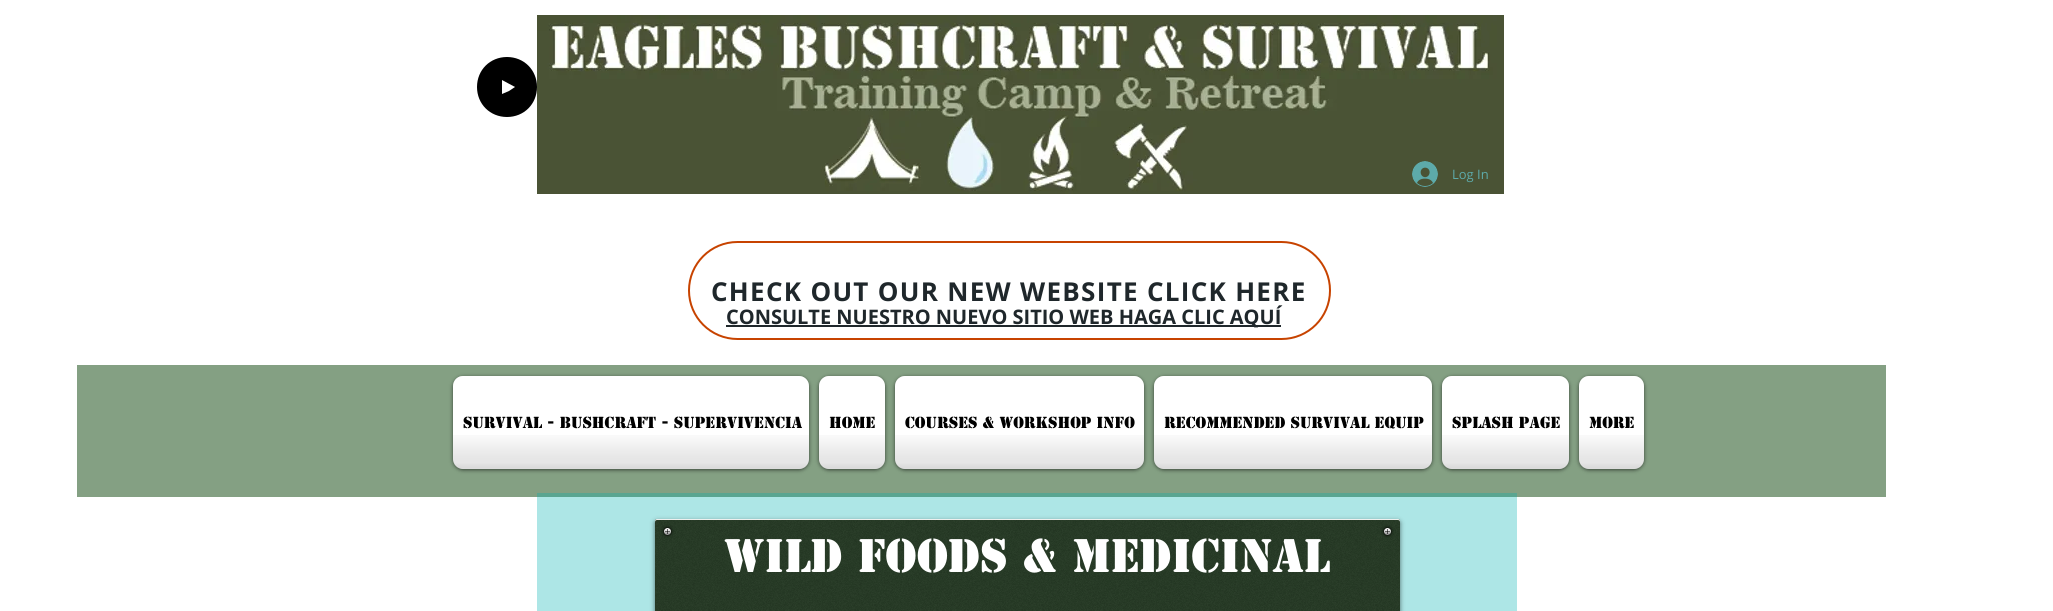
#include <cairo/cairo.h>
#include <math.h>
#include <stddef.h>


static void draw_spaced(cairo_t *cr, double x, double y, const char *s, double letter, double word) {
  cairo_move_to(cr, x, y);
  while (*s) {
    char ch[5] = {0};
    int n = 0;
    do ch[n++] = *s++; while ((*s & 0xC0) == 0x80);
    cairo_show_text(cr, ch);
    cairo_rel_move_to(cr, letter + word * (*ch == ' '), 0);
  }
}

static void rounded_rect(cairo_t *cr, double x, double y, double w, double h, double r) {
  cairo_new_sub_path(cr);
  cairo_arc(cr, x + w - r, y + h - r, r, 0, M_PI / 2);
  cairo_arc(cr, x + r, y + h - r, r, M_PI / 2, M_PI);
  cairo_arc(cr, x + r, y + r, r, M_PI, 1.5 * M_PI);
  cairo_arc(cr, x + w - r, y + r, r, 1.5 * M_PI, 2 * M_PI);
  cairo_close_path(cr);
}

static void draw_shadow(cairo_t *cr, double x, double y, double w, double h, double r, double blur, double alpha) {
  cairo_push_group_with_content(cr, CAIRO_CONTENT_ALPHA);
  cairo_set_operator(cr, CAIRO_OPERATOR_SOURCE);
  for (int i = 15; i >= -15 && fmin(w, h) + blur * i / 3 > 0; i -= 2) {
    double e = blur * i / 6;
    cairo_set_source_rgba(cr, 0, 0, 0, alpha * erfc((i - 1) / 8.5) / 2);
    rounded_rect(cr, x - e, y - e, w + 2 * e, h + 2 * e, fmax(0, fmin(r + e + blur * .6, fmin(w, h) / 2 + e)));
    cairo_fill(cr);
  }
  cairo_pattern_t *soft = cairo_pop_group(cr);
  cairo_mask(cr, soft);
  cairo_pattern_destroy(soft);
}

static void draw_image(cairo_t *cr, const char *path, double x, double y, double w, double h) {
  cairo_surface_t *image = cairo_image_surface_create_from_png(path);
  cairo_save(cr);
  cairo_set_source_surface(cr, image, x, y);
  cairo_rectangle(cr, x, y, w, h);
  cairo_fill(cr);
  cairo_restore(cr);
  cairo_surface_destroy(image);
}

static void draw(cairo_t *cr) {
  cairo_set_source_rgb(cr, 1, 1, 1);
  cairo_paint(cr);
  cairo_set_source_rgb(cr, 173 / 255.0, 230 / 255.0, 230 / 255.0);
  cairo_rectangle(cr, 537, 497, 980, 114);
  cairo_fill(cr);
  cairo_set_source_rgb(cr, 0, 0, 0);
  cairo_new_path(cr);
  cairo_move_to(cr, 509, 91);
  cairo_line_to(cr, 502, 94);
  cairo_line_to(cr, 502, 80);
  cairo_line_to(cr, 515, 87);
  cairo_close_path(cr);
  cairo_move_to(cr, 507, 57);
  cairo_curve_to(cr, 490, 57, 477, 70, 477, 87);
  cairo_curve_to(cr, 477, 104, 490, 117, 507, 117);
  cairo_curve_to(cr, 524, 117, 537, 104, 537, 87);
  cairo_curve_to(cr, 537, 70, 524, 57, 507, 57);
  cairo_close_path(cr);
  cairo_fill(cr);
  draw_image(cr, "images/1.png", 537, 15, 967, 179);
  draw_image(cr, "images/2.png", 1412, 161, 26, 26);
  rounded_rect(cr, 689, 242, 641, 97, 48.5);
  cairo_set_source_rgb(cr, 199 / 255.0, 67 / 255.0, 0);
  cairo_stroke(cr);
  cairo_set_source_rgb(cr, 31 / 255.0, 39 / 255.0, 43 / 255.0);
  cairo_rectangle(cr, 726, 325, 555, 2);
  cairo_fill(cr);
  cairo_set_source_rgb(cr, 132 / 255.0, 160 / 255.0, 131 / 255.0);
  cairo_rectangle(cr, 77, 365, 1809, 132);
  cairo_fill(cr);
  cairo_set_source_rgb(cr, 90 / 255.0, 165 / 255.0, 145 / 255.0);
  cairo_rectangle(cr, 537, 493, 980, 4);
  cairo_fill(cr);
  cairo_set_source_rgb(cr, 0, 0, 0);
  draw_shadow(cr, 453, 377, 356, 93, 10, 2, 0.6);
  cairo_set_source_rgb(cr, 1, 1, 1);
  rounded_rect(cr, 453, 376, 356, 93, 10);
  cairo_fill(cr);
  draw_image(cr, "images/3.png", 453, 376, 356, 9);
  draw_image(cr, "images/4.png", 453, 435, 356, 34);
  cairo_set_source_rgb(cr, 0, 0, 0);
  draw_shadow(cr, 819, 377, 66, 93, 10, 2, 0.6);
  cairo_set_source_rgb(cr, 1, 1, 1);
  rounded_rect(cr, 819, 376, 66, 93, 10);
  cairo_fill(cr);
  draw_image(cr, "images/5.png", 819, 376, 66, 9);
  draw_image(cr, "images/6.png", 819, 435, 66, 34);
  cairo_set_source_rgb(cr, 0, 0, 0);
  draw_shadow(cr, 895, 377, 249, 93, 10, 2, 0.6);
  cairo_set_source_rgb(cr, 1, 1, 1);
  rounded_rect(cr, 895, 376, 249, 93, 10);
  cairo_fill(cr);
  draw_image(cr, "images/7.png", 895, 376, 249, 9);
  draw_image(cr, "images/8.png", 895, 435, 249, 34);
  cairo_set_source_rgb(cr, 0, 0, 0);
  draw_shadow(cr, 1154, 377, 278, 93, 10, 2, 0.6);
  cairo_set_source_rgb(cr, 1, 1, 1);
  rounded_rect(cr, 1154, 376, 278, 93, 10);
  cairo_fill(cr);
  draw_image(cr, "images/9.png", 1154, 376, 278, 9);
  draw_image(cr, "images/10.png", 1154, 435, 278, 34);
  cairo_set_source_rgb(cr, 0, 0, 0);
  draw_shadow(cr, 1442, 377, 127, 93, 10, 2, 0.6);
  cairo_set_source_rgb(cr, 1, 1, 1);
  rounded_rect(cr, 1442, 376, 127, 93, 10);
  cairo_fill(cr);
  draw_image(cr, "images/11.png", 1442, 376, 127, 9);
  draw_image(cr, "images/12.png", 1442, 435, 127, 34);
  cairo_set_source_rgb(cr, 0, 0, 0);
  draw_shadow(cr, 1579, 377, 65, 93, 10, 2, 0.6);
  cairo_set_source_rgb(cr, 1, 1, 1);
  rounded_rect(cr, 1579, 376, 65, 93, 10);
  cairo_fill(cr);
  draw_image(cr, "images/13.png", 1579, 376, 65, 9);
  draw_image(cr, "images/14.png", 1579, 435, 65, 34);
  cairo_set_source_rgb(cr, 0, 0, 0);
  draw_shadow(cr, 655, 521, 745, 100, 2, 2.5, 0.53);
  cairo_set_source_rgb(cr, 38 / 255.0, 58 / 255.0, 37 / 255.0);
  rounded_rect(cr, 655, 519, 745, 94, 2);
  cairo_fill(cr);
  draw_image(cr, "images/15.png", 655, 519, 745, 92);
  cairo_set_source_rgba(cr, 1, 1, 1, 0.92);
  cairo_new_path(cr);
  cairo_move_to(cr, 657, 520);
  cairo_line_to(cr, 1398, 520);
  cairo_curve_to(cr, 1399, 520, 1400, 521, 1400, 522);
  cairo_curve_to(cr, 1400, 521, 1400, 519, 1398, 519);
  cairo_line_to(cr, 657, 519);
  cairo_curve_to(cr, 655, 519, 655, 521, 655, 522);
  cairo_curve_to(cr, 655, 521, 656, 520, 657, 520);
  cairo_close_path(cr);
  cairo_fill(cr);
  draw_image(cr, "images/16.png", 661, 525, 13, 13);
  draw_image(cr, "images/17.png", 1381, 525, 13, 13);
  cairo_select_font_face(cr, "Open Sans", CAIRO_FONT_SLANT_NORMAL, CAIRO_FONT_WEIGHT_NORMAL);
  cairo_set_font_size(cr, 13);
  cairo_set_source_rgb(cr, 93 / 255.0, 170 / 255.0, 170 / 255.0);
  cairo_move_to(cr, 1452, 179);
  cairo_show_text(cr, "Log In");
  cairo_select_font_face(cr, "Open Sans", CAIRO_FONT_SLANT_NORMAL, CAIRO_FONT_WEIGHT_BOLD);
  cairo_set_font_size(cr, 26);
  cairo_set_source_rgb(cr, 31 / 255.0, 39 / 255.0, 43 / 255.0);
  draw_spaced(cr, 711, 301, "CHECK OUT OUR NEW WEBSITE CLICK HERE", 1.3, 0);
  cairo_set_font_size(cr, 20);
  cairo_move_to(cr, 726, 324);
  cairo_show_text(cr, "CONSULTE NUESTRO NUEVO SITIO WEB HAGA CLIC AQUÍ");
  cairo_select_font_face(cr, "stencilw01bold", CAIRO_FONT_SLANT_NORMAL, CAIRO_FONT_WEIGHT_BOLD);
  cairo_set_font_size(cr, 15);
  cairo_set_source_rgb(cr, 0, 0, 0);
  cairo_move_to(cr, 463, 428);
  cairo_show_text(cr, "Survival - Bushcraft - Supervivencia");
  cairo_move_to(cr, 829, 428);
  cairo_show_text(cr, "Home");
  cairo_move_to(cr, 905, 428);
  cairo_show_text(cr, "Courses & Workshop Info");
  cairo_move_to(cr, 1164, 428);
  cairo_show_text(cr, "Recommended survival equip");
  cairo_move_to(cr, 1452, 428);
  cairo_show_text(cr, "SPLASH Page");
  cairo_move_to(cr, 1589, 428);
  cairo_show_text(cr, "More");
  cairo_set_font_size(cr, 44);
  cairo_set_source_rgb(cr, 1, 1, 1);
  cairo_move_to(cr, 724, 572);
  cairo_show_text(cr, "WILD FOODS & MEDICINAL");
}

int main(void) {
  cairo_surface_t *surface = cairo_image_surface_create(CAIRO_FORMAT_RGB24, 2053, 611);
  cairo_t *cr = cairo_create(surface);
  cairo_font_options_t *options = cairo_font_options_create();
  cairo_font_options_set_hint_metrics(options, CAIRO_HINT_METRICS_OFF);
  cairo_font_options_set_hint_style(options, CAIRO_HINT_STYLE_NONE);
  cairo_set_font_options(cr, options);
  cairo_set_miter_limit(cr, 4);
  draw(cr);
  cairo_surface_write_to_png(surface, "out.png");
  cairo_font_options_destroy(options);
  cairo_destroy(cr);
  cairo_surface_destroy(surface);
  return 0;
}
